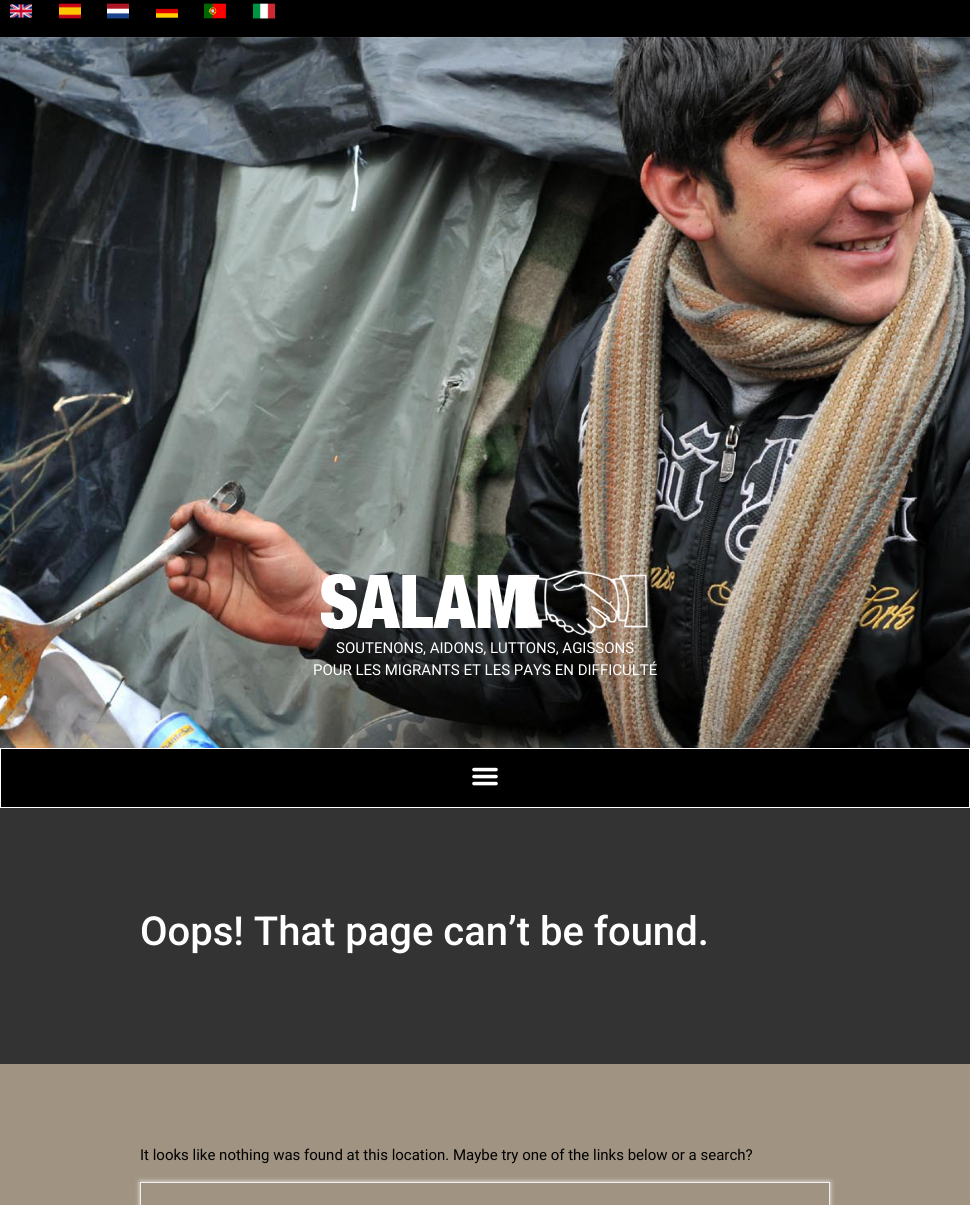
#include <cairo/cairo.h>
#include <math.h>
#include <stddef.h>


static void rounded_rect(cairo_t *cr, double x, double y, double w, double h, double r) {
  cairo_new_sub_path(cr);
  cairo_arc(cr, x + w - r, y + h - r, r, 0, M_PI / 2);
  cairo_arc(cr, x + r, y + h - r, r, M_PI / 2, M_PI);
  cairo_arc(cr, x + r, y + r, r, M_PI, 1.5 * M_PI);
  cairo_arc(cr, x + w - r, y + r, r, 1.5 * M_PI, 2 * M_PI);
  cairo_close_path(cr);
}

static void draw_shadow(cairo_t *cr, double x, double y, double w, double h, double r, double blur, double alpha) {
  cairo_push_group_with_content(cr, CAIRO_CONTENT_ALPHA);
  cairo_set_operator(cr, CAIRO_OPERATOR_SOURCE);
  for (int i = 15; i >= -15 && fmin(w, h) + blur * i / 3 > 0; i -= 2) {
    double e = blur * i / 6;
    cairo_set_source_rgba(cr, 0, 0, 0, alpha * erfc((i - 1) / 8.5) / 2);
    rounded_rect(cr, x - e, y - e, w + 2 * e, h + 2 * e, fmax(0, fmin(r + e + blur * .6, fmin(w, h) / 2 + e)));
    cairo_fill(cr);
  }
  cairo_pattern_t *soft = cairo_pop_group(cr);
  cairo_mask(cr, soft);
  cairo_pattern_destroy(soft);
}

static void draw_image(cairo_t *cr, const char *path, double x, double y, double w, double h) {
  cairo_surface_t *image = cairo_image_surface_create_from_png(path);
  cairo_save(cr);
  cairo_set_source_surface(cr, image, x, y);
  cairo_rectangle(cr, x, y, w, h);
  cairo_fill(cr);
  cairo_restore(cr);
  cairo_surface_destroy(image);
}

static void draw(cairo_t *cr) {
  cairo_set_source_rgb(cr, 160 / 255.0, 147 / 255.0, 129 / 255.0);
  cairo_paint(cr);
  cairo_set_source_rgb(cr, 0, 0, 0);
  cairo_rectangle(cr, 0, 0, 970, 37);
  cairo_fill(cr);
  draw_image(cr, "images/1.png", 10, 4, 22, 14);
  draw_image(cr, "images/2.png", 59, 3, 22, 16);
  draw_image(cr, "images/3.png", 107, 3, 22, 16);
  draw_image(cr, "images/4.png", 156, 8, 22, 10);
  draw_image(cr, "images/5.png", 204, 3, 22, 16);
  draw_image(cr, "images/6.png", 253, 3, 22, 16);
  draw_image(cr, "images/7.png", 0, 37, 970, 711);
  draw_image(cr, "images/8.png", 321, 569, 328, 67);
  cairo_rectangle(cr, 0.5, 748.5, 969, 59);
  cairo_fill_preserve(cr);
  cairo_set_source_rgb(cr, 1, 1, 1);
  cairo_set_line_width(cr, 1);
  cairo_stroke(cr);
  draw_image(cr, "images/9.png", 472, 767, 26, 19);
  cairo_set_source_rgb(cr, 51 / 255.0, 51 / 255.0, 51 / 255.0);
  cairo_rectangle(cr, 0, 808, 970, 256);
  cairo_fill(cr);
  cairo_save(cr);
  cairo_set_fill_rule(cr, CAIRO_FILL_RULE_EVEN_ODD);
  cairo_new_path(cr);
  cairo_move_to(cr, 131, 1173);
  cairo_line_to(cr, 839, 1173);
  cairo_line_to(cr, 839, 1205);
  cairo_line_to(cr, 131, 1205);
  cairo_close_path(cr);
  cairo_move_to(cr, 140, 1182);
  cairo_line_to(cr, 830, 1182);
  cairo_line_to(cr, 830, 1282);
  cairo_line_to(cr, 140, 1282);
  cairo_close_path(cr);
  cairo_clip(cr);
  cairo_set_source_rgb(cr, 241 / 255.0, 241 / 255.0, 241 / 255.0);
  draw_shadow(cr, 140, 1182, 690, 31, 0, 2.5, 1);
  cairo_restore(cr);
  cairo_rectangle(cr, 140.5, 1182.5, 689, 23);
  cairo_set_source_rgb(cr, 241 / 255.0, 241 / 255.0, 241 / 255.0);
  cairo_stroke(cr);
  cairo_select_font_face(cr, "Roboto", CAIRO_FONT_SLANT_NORMAL, CAIRO_FONT_WEIGHT_NORMAL);
  cairo_set_font_size(cr, 15);
  cairo_set_source_rgb(cr, 1, 1, 1);
  cairo_move_to(cr, 336, 653);
  cairo_show_text(cr, "SOUTENONS, AIDONS, LUTTONS, AGISSONS");
  cairo_move_to(cr, 313, 675);
  cairo_show_text(cr, "POUR LES MIGRANTS ET LES PAYS EN DIFFICULTÉ");
  cairo_select_font_face(cr, "Roboto Medium", CAIRO_FONT_SLANT_NORMAL, CAIRO_FONT_WEIGHT_NORMAL);
  cairo_set_font_size(cr, 40);
  cairo_move_to(cr, 140, 945);
  cairo_show_text(cr, "Oops! That page can’t be found.");
  cairo_select_font_face(cr, "Roboto", CAIRO_FONT_SLANT_NORMAL, CAIRO_FONT_WEIGHT_NORMAL);
  cairo_set_font_size(cr, 15);
  cairo_set_source_rgb(cr, 0, 0, 0);
  cairo_move_to(cr, 140, 1160);
  cairo_show_text(cr, "It looks like nothing was found at this location. Maybe try one of the links below or a search?");
}

int main(void) {
  cairo_surface_t *surface = cairo_image_surface_create(CAIRO_FORMAT_RGB24, 970, 1205);
  cairo_t *cr = cairo_create(surface);
  cairo_font_options_t *options = cairo_font_options_create();
  cairo_font_options_set_hint_metrics(options, CAIRO_HINT_METRICS_OFF);
  cairo_font_options_set_hint_style(options, CAIRO_HINT_STYLE_NONE);
  cairo_set_font_options(cr, options);
  cairo_set_miter_limit(cr, 4);
  draw(cr);
  cairo_surface_write_to_png(surface, "out.png");
  cairo_font_options_destroy(options);
  cairo_destroy(cr);
  cairo_surface_destroy(surface);
  return 0;
}
